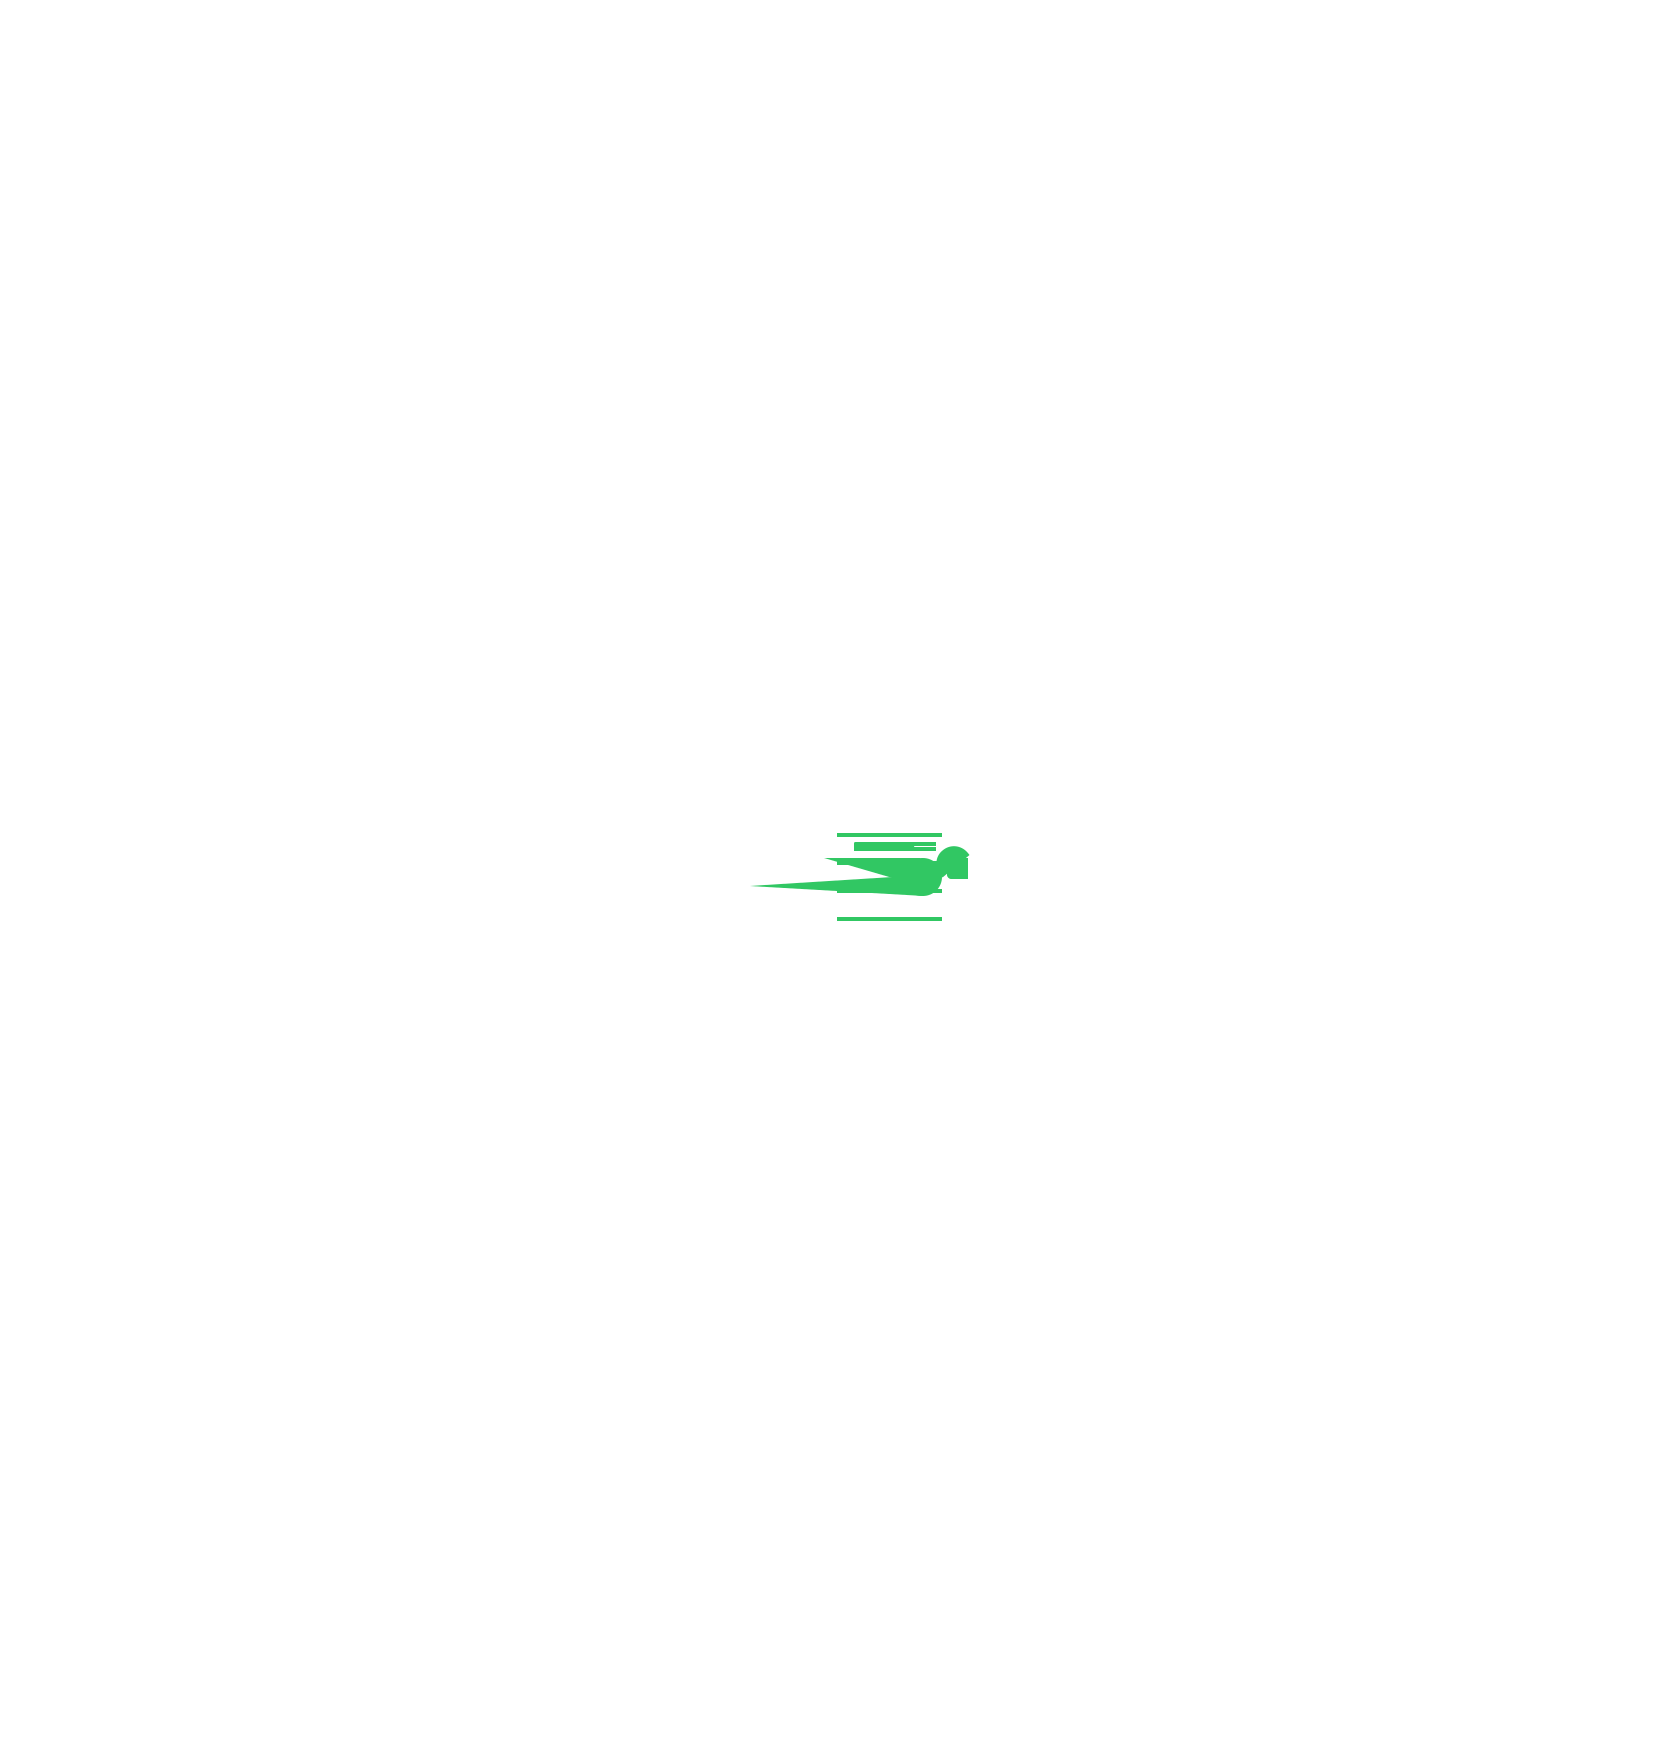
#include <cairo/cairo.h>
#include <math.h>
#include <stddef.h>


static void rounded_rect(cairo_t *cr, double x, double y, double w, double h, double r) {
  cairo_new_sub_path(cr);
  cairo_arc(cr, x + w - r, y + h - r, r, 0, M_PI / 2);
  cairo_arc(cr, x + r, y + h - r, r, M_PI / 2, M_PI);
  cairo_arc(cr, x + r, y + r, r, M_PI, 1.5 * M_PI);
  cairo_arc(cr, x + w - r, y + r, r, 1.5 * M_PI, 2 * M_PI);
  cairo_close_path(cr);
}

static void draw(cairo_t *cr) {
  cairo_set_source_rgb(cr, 1, 1, 1);
  cairo_paint(cr);
  cairo_set_source_rgb(cr, 49 / 255.0, 199 / 255.0, 99 / 255.0);
  cairo_rectangle(cr, 837, 833, 105, 4);
  cairo_fill(cr);
  cairo_new_path(cr);
  cairo_move_to(cr, 924, 875);
  cairo_line_to(cr, 924, 896);
  cairo_line_to(cr, 749, 886);
  cairo_close_path(cr);
  cairo_fill(cr);
  cairo_new_path(cr);
  cairo_move_to(cr, 920, 858);
  cairo_line_to(cr, 920, 886);
  cairo_line_to(cr, 824, 858);
  cairo_close_path(cr);
  cairo_fill(cr);
  rounded_rect(cr, 903, 858, 39, 38, 19);
  cairo_fill(cr);
  cairo_new_path(cr);
  cairo_move_to(cr, 942.5, 850.5);
  cairo_curve_to(cr, 950, 844, 961, 845, 967.5, 852.5);
  cairo_line_to(cr, 969.5, 855);
  cairo_line_to(cr, 942.5, 877.5);
  cairo_line_to(cr, 940.5, 875);
  cairo_curve_to(cr, 934.5, 867.5, 935, 856.5, 942.5, 850.5);
  cairo_close_path(cr);
  cairo_fill(cr);
  cairo_rectangle(cr, 837, 861, 105, 4);
  cairo_fill(cr);
  cairo_rectangle(cr, 837, 889, 105, 4);
  cairo_fill(cr);
  cairo_rectangle(cr, 837, 917, 105, 4);
  cairo_fill(cr);
  cairo_new_path(cr);
  cairo_move_to(cr, 855.5, 842);
  cairo_line_to(cr, 907, 842);
  cairo_curve_to(cr, 911.5, 842, 915, 845.5, 915, 850);
  cairo_curve_to(cr, 915, 850.5, 914.5, 851, 914, 851);
  cairo_line_to(cr, 854, 851);
  cairo_line_to(cr, 854, 843.5);
  cairo_curve_to(cr, 854, 842.5, 854.5, 842, 855.5, 842);
  cairo_close_path(cr);
  cairo_fill(cr);
  cairo_rectangle(cr, 907, 842, 29, 2);
  cairo_fill(cr);
  cairo_rectangle(cr, 912, 844, 24, 2);
  cairo_fill(cr);
  cairo_rectangle(cr, 914, 847, 22, 4);
  cairo_fill(cr);
  cairo_new_path(cr);
  cairo_move_to(cr, 947, 858);
  cairo_line_to(cr, 968, 858);
  cairo_line_to(cr, 968, 879);
  cairo_line_to(cr, 951, 879);
  cairo_curve_to(cr, 949, 879, 947, 877, 947, 875);
  cairo_close_path(cr);
  cairo_fill(cr);
}

int main(void) {
  cairo_surface_t *surface = cairo_image_surface_create(CAIRO_FORMAT_RGB24, 1671, 1748);
  cairo_t *cr = cairo_create(surface);
  cairo_font_options_t *options = cairo_font_options_create();
  cairo_font_options_set_hint_metrics(options, CAIRO_HINT_METRICS_OFF);
  cairo_font_options_set_hint_style(options, CAIRO_HINT_STYLE_NONE);
  cairo_set_font_options(cr, options);
  cairo_set_miter_limit(cr, 4);
  draw(cr);
  cairo_surface_write_to_png(surface, "out.png");
  cairo_font_options_destroy(options);
  cairo_destroy(cr);
  cairo_surface_destroy(surface);
  return 0;
}
